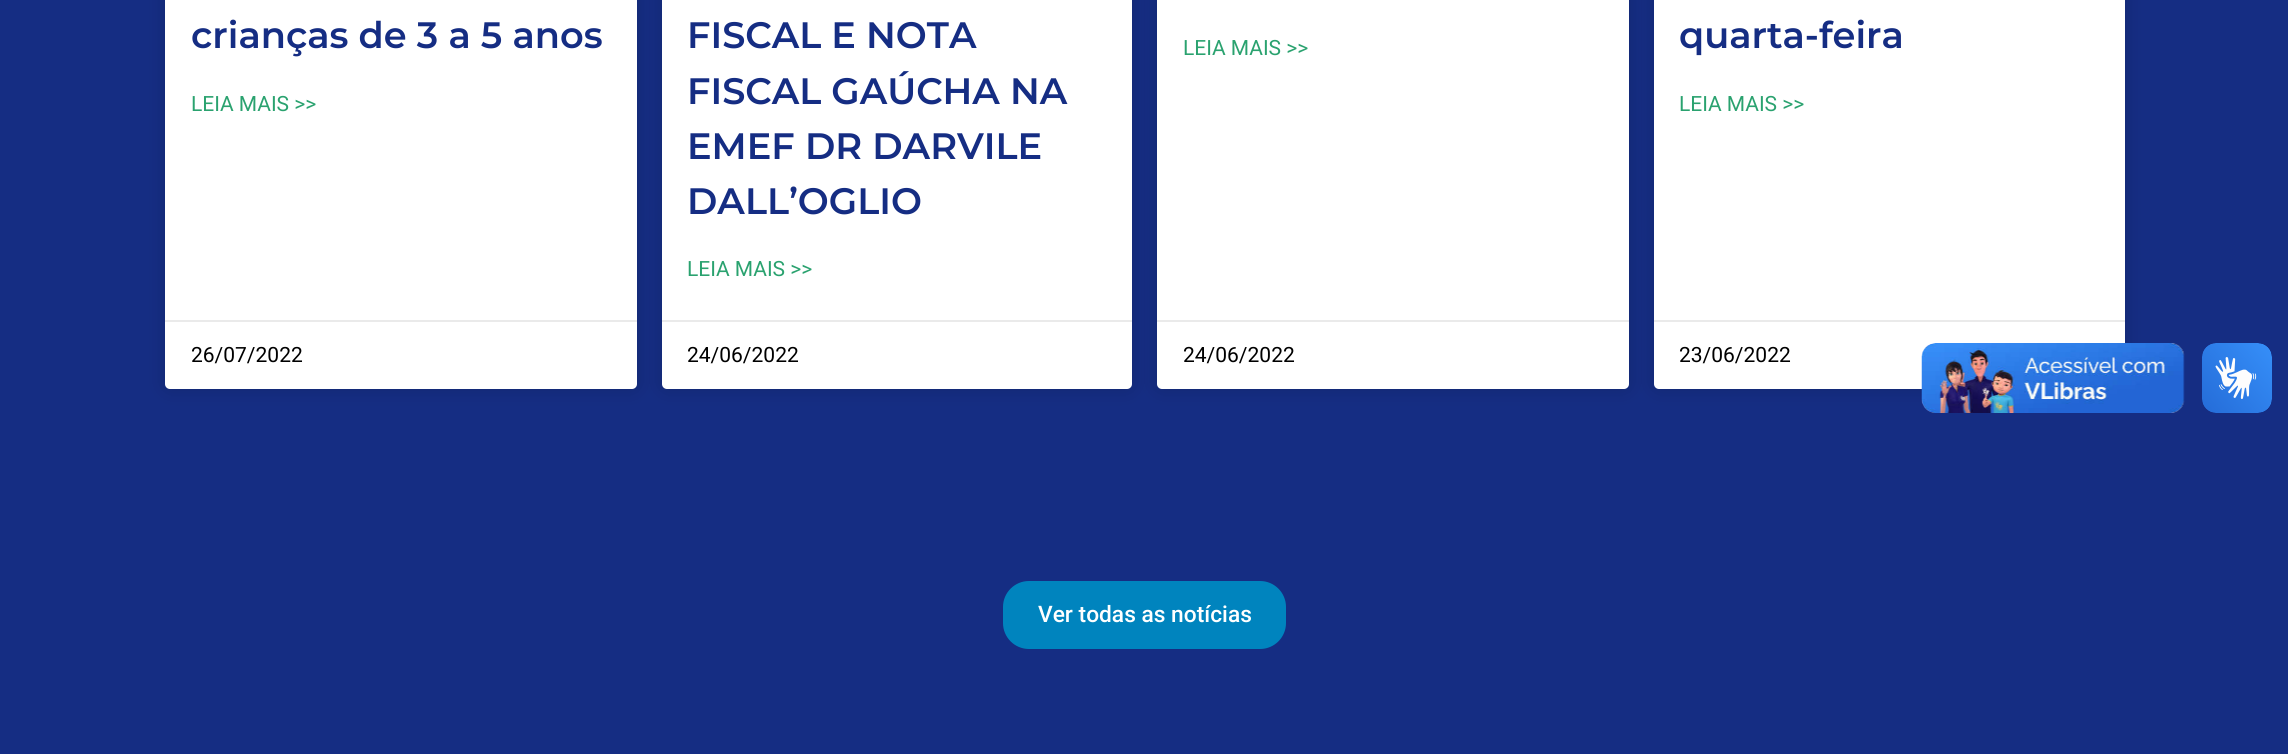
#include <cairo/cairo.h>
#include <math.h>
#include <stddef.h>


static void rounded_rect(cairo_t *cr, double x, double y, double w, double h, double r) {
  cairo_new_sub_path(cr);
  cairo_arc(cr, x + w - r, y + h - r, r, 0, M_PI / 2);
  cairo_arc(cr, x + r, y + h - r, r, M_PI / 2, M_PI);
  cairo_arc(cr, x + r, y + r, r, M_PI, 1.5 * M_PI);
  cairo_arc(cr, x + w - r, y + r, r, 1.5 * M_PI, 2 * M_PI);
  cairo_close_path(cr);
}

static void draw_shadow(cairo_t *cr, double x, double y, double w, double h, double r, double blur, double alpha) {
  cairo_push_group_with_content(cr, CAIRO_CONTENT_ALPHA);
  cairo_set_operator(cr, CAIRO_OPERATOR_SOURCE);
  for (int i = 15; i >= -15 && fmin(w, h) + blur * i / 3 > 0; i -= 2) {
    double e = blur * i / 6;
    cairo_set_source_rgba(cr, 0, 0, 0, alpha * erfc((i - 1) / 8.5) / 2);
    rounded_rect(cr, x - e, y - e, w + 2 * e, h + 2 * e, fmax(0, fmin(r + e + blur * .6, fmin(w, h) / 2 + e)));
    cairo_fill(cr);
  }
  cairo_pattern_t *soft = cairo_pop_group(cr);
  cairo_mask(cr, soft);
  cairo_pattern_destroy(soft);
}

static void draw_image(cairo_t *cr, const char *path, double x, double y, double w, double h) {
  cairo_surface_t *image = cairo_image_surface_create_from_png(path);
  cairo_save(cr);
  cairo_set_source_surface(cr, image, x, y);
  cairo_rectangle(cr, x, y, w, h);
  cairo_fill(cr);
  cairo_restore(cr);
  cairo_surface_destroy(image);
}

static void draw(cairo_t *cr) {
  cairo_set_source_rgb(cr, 1, 1, 1);
  cairo_paint(cr);
  cairo_set_source_rgb(cr, 21 / 255.0, 45 / 255.0, 131 / 255.0);
  cairo_rectangle(cr, 0, 0, 2288, 754);
  cairo_fill(cr);
  cairo_set_source_rgb(cr, 0, 0, 0);
  draw_shadow(cr, 165, -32, 472, 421, 5, 9, 0.15);
  cairo_set_source_rgb(cr, 1, 1, 1);
  rounded_rect(cr, 165, -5, 472, 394, 5);
  cairo_fill(cr);
  cairo_set_source_rgb(cr, 234 / 255.0, 234 / 255.0, 234 / 255.0);
  cairo_rectangle(cr, 165, 320, 472, 2);
  cairo_fill(cr);
  cairo_set_source_rgb(cr, 0, 0, 0);
  draw_shadow(cr, 662, -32, 470, 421, 5, 9, 0.15);
  cairo_set_source_rgb(cr, 1, 1, 1);
  rounded_rect(cr, 662, -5, 470, 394, 5);
  cairo_fill(cr);
  cairo_set_source_rgb(cr, 234 / 255.0, 234 / 255.0, 234 / 255.0);
  cairo_rectangle(cr, 662, 320, 470, 2);
  cairo_fill(cr);
  cairo_set_source_rgb(cr, 0, 0, 0);
  draw_shadow(cr, 1157, -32, 472, 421, 5, 9, 0.15);
  cairo_set_source_rgb(cr, 1, 1, 1);
  rounded_rect(cr, 1157, -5, 472, 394, 5);
  cairo_fill(cr);
  cairo_set_source_rgb(cr, 234 / 255.0, 234 / 255.0, 234 / 255.0);
  cairo_rectangle(cr, 1157, 320, 472, 2);
  cairo_fill(cr);
  cairo_set_source_rgb(cr, 0, 0, 0);
  draw_shadow(cr, 1654, -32, 471, 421, 5, 9, 0.15);
  cairo_set_source_rgb(cr, 1, 1, 1);
  rounded_rect(cr, 1654, -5, 471, 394, 5);
  cairo_fill(cr);
  cairo_set_source_rgb(cr, 234 / 255.0, 234 / 255.0, 234 / 255.0);
  cairo_rectangle(cr, 1654, 320, 471, 2);
  cairo_fill(cr);
  cairo_set_source_rgb(cr, 0, 132 / 255.0, 190 / 255.0);
  rounded_rect(cr, 1003, 581, 283, 68, 26);
  cairo_fill(cr);
  draw_image(cr, "images/1.png", 1921, 343, 264, 70);
  draw_image(cr, "images/2.png", 2202, 343, 70, 70);
  cairo_select_font_face(cr, "Montserrat SemiBold", CAIRO_FONT_SLANT_NORMAL, CAIRO_FONT_WEIGHT_NORMAL);
  cairo_set_font_size(cr, 36.75);
  cairo_set_source_rgb(cr, 21 / 255.0, 45 / 255.0, 131 / 255.0);
  cairo_move_to(cr, 191, 48);
  cairo_show_text(cr, "crianças de 3 a 5 anos");
  cairo_select_font_face(cr, "Roboto", CAIRO_FONT_SLANT_NORMAL, CAIRO_FONT_WEIGHT_NORMAL);
  cairo_set_font_size(cr, 21);
  cairo_set_source_rgb(cr, 42 / 255.0, 162 / 255.0, 111 / 255.0);
  cairo_move_to(cr, 191, 111);
  cairo_show_text(cr, "LEIA MAIS >>");
  cairo_set_source_rgb(cr, 0, 0, 0);
  cairo_move_to(cr, 191, 362);
  cairo_show_text(cr, "26/07/2022");
  cairo_select_font_face(cr, "Montserrat SemiBold", CAIRO_FONT_SLANT_NORMAL, CAIRO_FONT_WEIGHT_NORMAL);
  cairo_set_font_size(cr, 36.75);
  cairo_set_source_rgb(cr, 21 / 255.0, 45 / 255.0, 131 / 255.0);
  cairo_move_to(cr, 687, 48);
  cairo_show_text(cr, "FISCAL E NOTA");
  cairo_move_to(cr, 687, 104);
  cairo_show_text(cr, "FISCAL GAÚCHA NA");
  cairo_move_to(cr, 687, 159);
  cairo_show_text(cr, "EMEF DR DARVILE");
  cairo_move_to(cr, 687, 214);
  cairo_show_text(cr, "DALL’OGLIO");
  cairo_select_font_face(cr, "Roboto", CAIRO_FONT_SLANT_NORMAL, CAIRO_FONT_WEIGHT_NORMAL);
  cairo_set_font_size(cr, 21);
  cairo_set_source_rgb(cr, 42 / 255.0, 162 / 255.0, 111 / 255.0);
  cairo_move_to(cr, 687, 276);
  cairo_show_text(cr, "LEIA MAIS >>");
  cairo_set_source_rgb(cr, 0, 0, 0);
  cairo_move_to(cr, 687, 362);
  cairo_show_text(cr, "24/06/2022");
  cairo_set_source_rgb(cr, 42 / 255.0, 162 / 255.0, 111 / 255.0);
  cairo_move_to(cr, 1183, 55);
  cairo_show_text(cr, "LEIA MAIS >>");
  cairo_set_source_rgb(cr, 0, 0, 0);
  cairo_move_to(cr, 1183, 362);
  cairo_show_text(cr, "24/06/2022");
  cairo_select_font_face(cr, "Montserrat SemiBold", CAIRO_FONT_SLANT_NORMAL, CAIRO_FONT_WEIGHT_NORMAL);
  cairo_set_font_size(cr, 36.75);
  cairo_set_source_rgb(cr, 21 / 255.0, 45 / 255.0, 131 / 255.0);
  cairo_move_to(cr, 1679, 48);
  cairo_show_text(cr, "quarta-feira");
  cairo_select_font_face(cr, "Roboto", CAIRO_FONT_SLANT_NORMAL, CAIRO_FONT_WEIGHT_NORMAL);
  cairo_set_font_size(cr, 21);
  cairo_set_source_rgb(cr, 42 / 255.0, 162 / 255.0, 111 / 255.0);
  cairo_move_to(cr, 1679, 111);
  cairo_show_text(cr, "LEIA MAIS >>");
  cairo_set_source_rgb(cr, 0, 0, 0);
  cairo_move_to(cr, 1679, 362);
  cairo_show_text(cr, "23/06/2022");
  cairo_select_font_face(cr, "Roboto Medium", CAIRO_FONT_SLANT_NORMAL, CAIRO_FONT_WEIGHT_NORMAL);
  cairo_set_font_size(cr, 22.75);
  cairo_set_source_rgb(cr, 1, 1, 1);
  cairo_move_to(cr, 1038, 622);
  cairo_show_text(cr, "Ver todas as notícias");
}

int main(void) {
  cairo_surface_t *surface = cairo_image_surface_create(CAIRO_FORMAT_RGB24, 2288, 755);
  cairo_t *cr = cairo_create(surface);
  cairo_font_options_t *options = cairo_font_options_create();
  cairo_font_options_set_hint_metrics(options, CAIRO_HINT_METRICS_OFF);
  cairo_font_options_set_hint_style(options, CAIRO_HINT_STYLE_NONE);
  cairo_set_font_options(cr, options);
  cairo_set_miter_limit(cr, 4);
  draw(cr);
  cairo_surface_write_to_png(surface, "out.png");
  cairo_font_options_destroy(options);
  cairo_destroy(cr);
  cairo_surface_destroy(surface);
  return 0;
}
